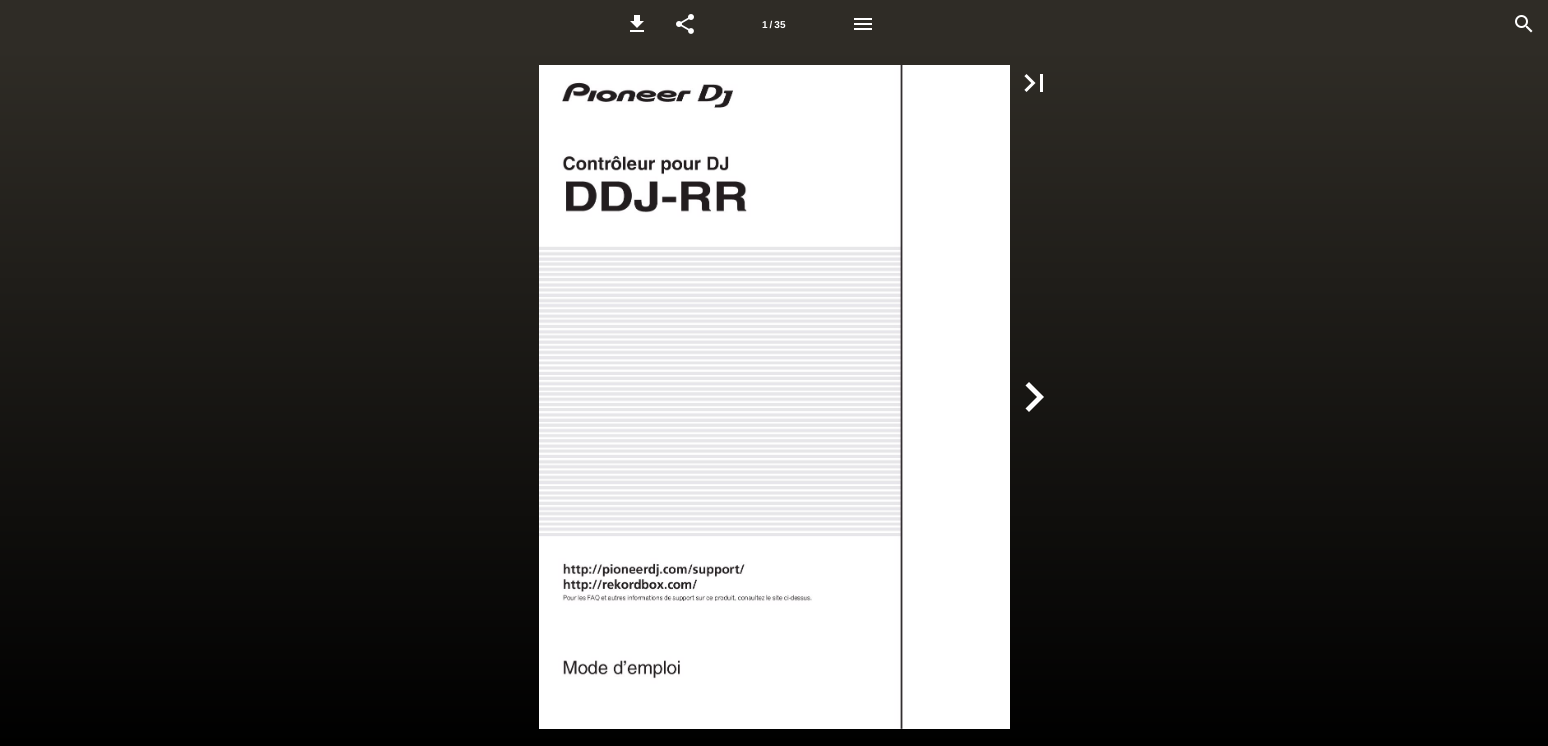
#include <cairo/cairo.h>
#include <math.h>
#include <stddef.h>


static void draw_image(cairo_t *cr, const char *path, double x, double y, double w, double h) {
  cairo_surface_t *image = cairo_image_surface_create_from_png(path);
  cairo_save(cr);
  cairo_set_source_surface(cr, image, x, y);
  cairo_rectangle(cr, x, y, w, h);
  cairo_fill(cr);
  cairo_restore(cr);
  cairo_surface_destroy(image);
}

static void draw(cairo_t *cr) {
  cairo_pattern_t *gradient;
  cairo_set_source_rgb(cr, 1, 1, 1);
  cairo_paint(cr);
  cairo_set_source_rgb(cr, 47 / 255.0, 44 / 255.0, 38 / 255.0);
  cairo_rectangle(cr, 0, 0, 1548, 48);
  cairo_fill(cr);
  draw_image(cr, "images/1.png", 630, 15, 14, 17);
  draw_image(cr, "images/2.png", 676, 14, 18, 20);
  draw_image(cr, "images/3.png", 854, 18, 18, 12);
  draw_image(cr, "images/4.png", 1515, 15, 18, 18);
  gradient = cairo_pattern_create_linear(774, 48, 774, 746);
  cairo_pattern_add_color_stop_rgba(gradient, 0, 47 / 255.0, 44 / 255.0, 38 / 255.0, 1);
  cairo_pattern_add_color_stop_rgba(gradient, 1, 0, 0, 0, 1);
  cairo_set_source(cr, gradient);
  cairo_pattern_destroy(gradient);
  cairo_rectangle(cr, 0, 48, 1548, 698);
  cairo_fill(cr);
  cairo_set_source_rgb(cr, 1, 1, 1);
  cairo_rectangle(cr, 539, 65, 471, 664);
  cairo_fill(cr);
  draw_image(cr, "images/5.png", 539, 65, 364, 664);
  draw_image(cr, "images/6.png", 1024, 74, 19, 18);
  cairo_new_path(cr);
  cairo_move_to(cr, 1029, 382);
  cairo_line_to(cr, 1025.5, 385.5);
  cairo_line_to(cr, 1037, 397);
  cairo_line_to(cr, 1025.5, 408.5);
  cairo_line_to(cr, 1029, 412);
  cairo_line_to(cr, 1044, 397);
  cairo_close_path(cr);
  cairo_fill(cr);
  cairo_select_font_face(cr, "Liberation Sans", CAIRO_FONT_SLANT_NORMAL, CAIRO_FONT_WEIGHT_BOLD);
  cairo_set_font_size(cr, 10);
  cairo_move_to(cr, 762, 28);
  cairo_show_text(cr, "1 / 35");
}

int main(void) {
  cairo_surface_t *surface = cairo_image_surface_create(CAIRO_FORMAT_RGB24, 1548, 746);
  cairo_t *cr = cairo_create(surface);
  cairo_font_options_t *options = cairo_font_options_create();
  cairo_font_options_set_hint_metrics(options, CAIRO_HINT_METRICS_OFF);
  cairo_font_options_set_hint_style(options, CAIRO_HINT_STYLE_NONE);
  cairo_set_font_options(cr, options);
  cairo_set_miter_limit(cr, 4);
  draw(cr);
  cairo_surface_write_to_png(surface, "out.png");
  cairo_font_options_destroy(options);
  cairo_destroy(cr);
  cairo_surface_destroy(surface);
  return 0;
}
